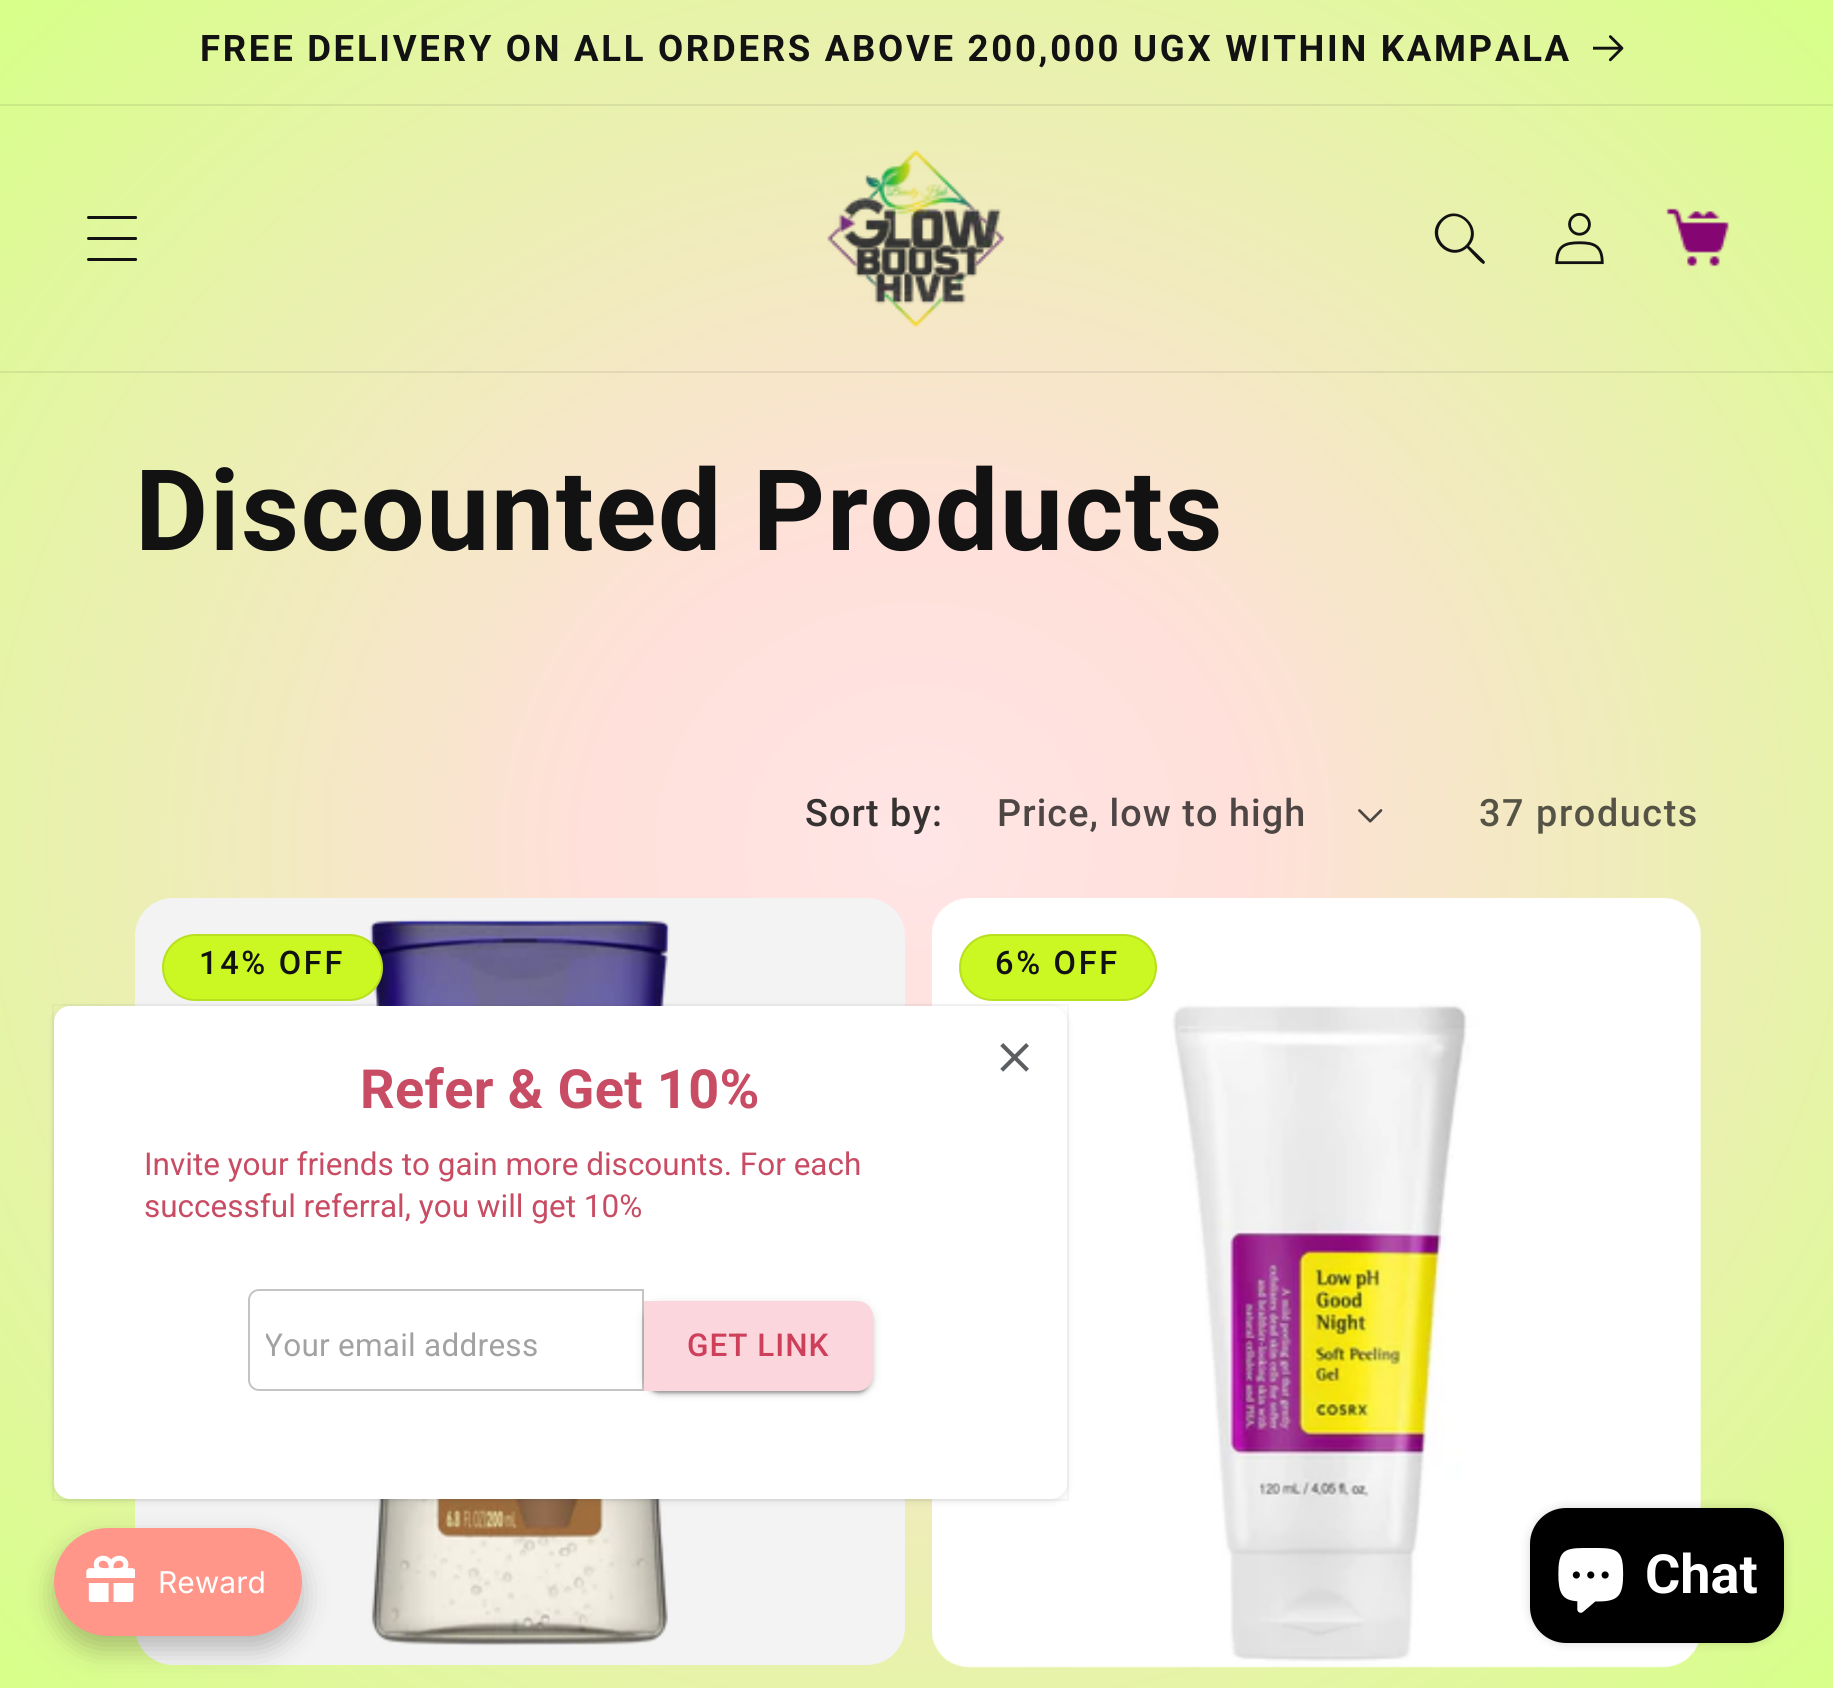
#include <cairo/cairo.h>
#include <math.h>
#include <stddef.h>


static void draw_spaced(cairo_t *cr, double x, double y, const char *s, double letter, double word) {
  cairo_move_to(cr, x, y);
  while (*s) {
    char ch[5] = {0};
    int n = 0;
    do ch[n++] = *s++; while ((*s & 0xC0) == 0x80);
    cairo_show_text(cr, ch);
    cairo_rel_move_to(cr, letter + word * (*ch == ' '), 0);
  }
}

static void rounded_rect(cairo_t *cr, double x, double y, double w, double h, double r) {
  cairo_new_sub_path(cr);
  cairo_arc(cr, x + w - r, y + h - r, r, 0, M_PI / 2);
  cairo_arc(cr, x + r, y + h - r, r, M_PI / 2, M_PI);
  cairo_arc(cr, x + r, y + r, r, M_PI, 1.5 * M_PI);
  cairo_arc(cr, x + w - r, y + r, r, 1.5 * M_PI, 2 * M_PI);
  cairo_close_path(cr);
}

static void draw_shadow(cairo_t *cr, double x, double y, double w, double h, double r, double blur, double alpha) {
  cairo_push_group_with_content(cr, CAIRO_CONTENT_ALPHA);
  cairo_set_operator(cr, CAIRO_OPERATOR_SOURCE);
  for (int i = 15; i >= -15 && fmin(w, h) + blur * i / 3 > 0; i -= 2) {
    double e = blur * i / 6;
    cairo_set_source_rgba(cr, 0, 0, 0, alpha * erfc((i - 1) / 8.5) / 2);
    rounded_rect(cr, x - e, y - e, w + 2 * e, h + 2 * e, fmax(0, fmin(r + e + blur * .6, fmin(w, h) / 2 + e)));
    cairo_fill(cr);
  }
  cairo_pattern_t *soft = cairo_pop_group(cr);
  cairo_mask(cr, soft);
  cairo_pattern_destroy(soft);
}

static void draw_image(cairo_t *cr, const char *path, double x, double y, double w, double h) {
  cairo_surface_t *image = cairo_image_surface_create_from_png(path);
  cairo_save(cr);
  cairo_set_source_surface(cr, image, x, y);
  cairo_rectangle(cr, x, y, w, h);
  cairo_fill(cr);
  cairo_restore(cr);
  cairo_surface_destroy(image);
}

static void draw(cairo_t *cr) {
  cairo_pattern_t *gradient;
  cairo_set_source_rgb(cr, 1, 1, 1);
  cairo_paint(cr);
  gradient = cairo_pattern_create_radial(0, 0, 0, 0, 0, 1);
  cairo_pattern_set_matrix(gradient, &(cairo_matrix_t){1.0 / 1297, 0, 0, 1.0 / 1195, -1.0 * 917 / 1297, -1.0 * 845 / 1195});
  cairo_pattern_add_color_stop_rgba(gradient, 0.01, 1, 229 / 255.0, 229 / 255.0, 1);
  cairo_pattern_add_color_stop_rgba(gradient, 0.26, 1, 224 / 255.0, 218 / 255.0, 1);
  cairo_pattern_add_color_stop_rgba(gradient, 1, 215 / 255.0, 1, 137 / 255.0, 1);
  cairo_set_source(cr, gradient);
  cairo_pattern_destroy(gradient);
  cairo_rectangle(cr, 0, 0, 1833, 1688);
  cairo_fill(cr);
  gradient = cairo_pattern_create_radial(0, 0, 0, 0, 0, 1);
  cairo_pattern_set_matrix(gradient, &(cairo_matrix_t){1.0 / 1297, 0, 0, 1.0 / 1195, -1.0 * 917 / 1297, -1.0 * 845 / 1195});
  cairo_pattern_add_color_stop_rgba(gradient, 0.01, 236 / 255.0, 212 / 255.0, 212 / 255.0, 1);
  cairo_pattern_add_color_stop_rgba(gradient, 0.26, 236 / 255.0, 208 / 255.0, 202 / 255.0, 1);
  cairo_pattern_add_color_stop_rgba(gradient, 1, 199 / 255.0, 236 / 255.0, 127 / 255.0, 1);
  cairo_set_source(cr, gradient);
  cairo_pattern_destroy(gradient);
  cairo_rectangle(cr, 0, 104, 1833, 2);
  cairo_fill(cr);
  cairo_rectangle(cr, 0, 371, 1833, 2);
  cairo_fill(cr);
  draw_image(cr, "images/1.png", 1593, 35, 31, 27);
  draw_image(cr, "images/2.png", 87, 216, 51, 45);
  draw_image(cr, "images/3.png", 827, 150, 178, 177);
  cairo_set_source_rgb(cr, 18 / 255.0, 18 / 255.0, 18 / 255.0);
  cairo_set_fill_rule(cr, CAIRO_FILL_RULE_EVEN_ODD);
  cairo_new_path(cr);
  cairo_move_to(cr, 1466, 245);
  cairo_curve_to(cr, 1451, 260, 1428, 237, 1443, 221);
  cairo_curve_to(cr, 1458, 206, 1481, 229, 1466, 245);
  cairo_close_path(cr);
  cairo_move_to(cr, 1467, 248);
  cairo_curve_to(cr, 1448, 264, 1423, 236, 1441, 219);
  cairo_curve_to(cr, 1458, 202, 1485, 228, 1469, 246);
  cairo_curve_to(cr, 1471, 248, 1485, 261, 1485, 262);
  cairo_line_to(cr, 1484, 264);
  cairo_curve_to(cr, 1482, 265, 1469, 250, 1467, 248);
  cairo_close_path(cr);
  cairo_fill(cr);
  draw_image(cr, "images/4.png", 1555, 212, 49, 53);
  draw_image(cr, "images/5.png", 1666, 208, 63, 59);
  draw_image(cr, "images/6.png", 1358, 809, 25, 14);
  cairo_set_source_rgb(cr, 243 / 255.0, 243 / 255.0, 243 / 255.0);
  rounded_rect(cr, 135, 898, 770, 767, 38);
  cairo_fill(cr);
  draw_image(cr, "images/7.png", 369, 919, 301, 727);
  cairo_set_source_rgb(cr, 203 / 255.0, 247 / 255.0, 34 / 255.0);
  rounded_rect(cr, 162, 934, 221, 67, 33.5);
  cairo_fill(cr);
  rounded_rect(cr, 163, 935, 219, 65, 32.5);
  cairo_set_source_rgba(cr, 18 / 255.0, 18 / 255.0, 18 / 255.0, 0.1);
  cairo_stroke(cr);
  draw_image(cr, "images/8.png", 932, 898, 769, 770);
  cairo_set_source_rgb(cr, 203 / 255.0, 247 / 255.0, 34 / 255.0);
  rounded_rect(cr, 959, 934, 198, 67, 33.5);
  cairo_fill(cr);
  rounded_rect(cr, 960, 935, 196, 65, 32.5);
  cairo_set_source_rgba(cr, 18 / 255.0, 18 / 255.0, 18 / 255.0, 0.1);
  cairo_stroke(cr);
  cairo_set_source_rgb(cr, 63 / 255.0, 63 / 255.0, 68 / 255.0);
  draw_shadow(cr, 54, 1008, 1013, 493, 16, 3.5, 0.15);
  cairo_rectangle(cr, 53, 1005, 1015, 495);
  cairo_set_source_rgba(cr, 63 / 255.0, 63 / 255.0, 68 / 255.0, 0.05);
  cairo_stroke(cr);
  cairo_set_source_rgb(cr, 1, 1, 1);
  rounded_rect(cr, 54, 1006, 1013, 493, 16);
  cairo_fill(cr);
  draw_image(cr, "images/9.png", 1000, 1043, 29, 29);
  cairo_new_path(cr);
  cairo_move_to(cr, 259, 1290);
  cairo_line_to(cr, 643, 1290);
  cairo_line_to(cr, 643, 1390);
  cairo_line_to(cr, 259, 1390);
  cairo_curve_to(cr, 253.5, 1390, 249, 1385.5, 249, 1380);
  cairo_line_to(cr, 249, 1300);
  cairo_curve_to(cr, 249, 1294.5, 253.5, 1290, 259, 1290);
  cairo_close_path(cr);
  cairo_set_source_rgb(cr, 196 / 255.0, 196 / 255.0, 196 / 255.0);
  cairo_stroke(cr);
  cairo_set_source_rgb(cr, 0, 0, 0);
  draw_shadow(cr, 644, 1303, 229, 90, 16, 5.5, 0.12);
  draw_shadow(cr, 644, 1305, 229, 90, 16, 2, 0.14);
  draw_shadow(cr, 648, 1312, 221, 81, 11, 1, 0.2);
  cairo_set_source_rgb(cr, 251 / 255.0, 214 / 255.0, 221 / 255.0);
  cairo_new_path(cr);
  cairo_move_to(cr, 644, 1301);
  cairo_line_to(cr, 857, 1301);
  cairo_curve_to(cr, 866, 1301, 873, 1308, 873, 1317);
  cairo_line_to(cr, 873, 1375);
  cairo_curve_to(cr, 873, 1384, 866, 1391, 857, 1391);
  cairo_line_to(cr, 644, 1391);
  cairo_close_path(cr);
  cairo_fill(cr);
  cairo_set_source_rgb(cr, 0, 0, 0);
  draw_shadow(cr, 54, 1541, 248, 108, 54, 13.5, 0.25);
  cairo_set_source_rgb(cr, 1, 150 / 255.0, 137 / 255.0);
  rounded_rect(cr, 54, 1528, 248, 108, 54);
  cairo_fill(cr);
  draw_image(cr, "images/10.png", 86, 1555, 49, 47);
  cairo_set_source_rgb(cr, 0, 0, 0);
  draw_shadow(cr, 1530, 1508, 254, 135, 36, 5.5, 0.15);
  cairo_set_source_rgb(cr, 0, 0, 0);
  rounded_rect(cr, 1530, 1508, 254, 135, 36);
  cairo_fill(cr);
  draw_image(cr, "images/11.png", 1558, 1548, 66, 65);
  cairo_select_font_face(cr, "Roboto", CAIRO_FONT_SLANT_NORMAL, CAIRO_FONT_WEIGHT_BOLD);
  cairo_set_font_size(cr, 36.55);
  cairo_set_source_rgb(cr, 18 / 255.0, 18 / 255.0, 18 / 255.0);
  draw_spaced(cr, 200, 61, "FREE DELIVERY ON ALL ORDERS ABOVE 200,000 UGX WITHIN KAMPALA", 2.7, 0);
  cairo_set_font_size(cr, 112.5);
  draw_spaced(cr, 135, 550, "Discounted Products", 1.7, 0);
  cairo_select_font_face(cr, "Roboto Medium", CAIRO_FONT_SLANT_NORMAL, CAIRO_FONT_WEIGHT_NORMAL);
  cairo_set_font_size(cr, 37.75);
  cairo_set_source_rgb(cr, 54 / 255.0, 50 / 255.0, 49 / 255.0);
  draw_spaced(cr, 805, 826, "Sort by:", 1.1, 0);
  cairo_set_source_rgb(cr, 77 / 255.0, 70 / 255.0, 69 / 255.0);
  draw_spaced(cr, 997, 826, "Price, low to high", 1.1, 0);
  cairo_set_source_rgb(cr, 85 / 255.0, 83 / 255.0, 69 / 255.0);
  draw_spaced(cr, 1479, 826, "37 products", 1.6, 0);
  cairo_set_font_size(cr, 32.5);
  cairo_set_source_rgb(cr, 18 / 255.0, 18 / 255.0, 18 / 255.0);
  draw_spaced(cr, 199, 974, "14% OFF", 2.7, 0);
  draw_spaced(cr, 995, 974, "6% OFF", 2.7, 0);
  cairo_select_font_face(cr, "Roboto", CAIRO_FONT_SLANT_NORMAL, CAIRO_FONT_WEIGHT_BOLD);
  cairo_set_font_size(cr, 54);
  cairo_set_source_rgb(cr, 200 / 255.0, 76 / 255.0, 99 / 255.0);
  draw_spaced(cr, 360, 1108, "Refer & Get 10%", 0.4, 0);
  cairo_select_font_face(cr, "Roboto", CAIRO_FONT_SLANT_NORMAL, CAIRO_FONT_WEIGHT_NORMAL);
  cairo_set_font_size(cr, 31.5);
  cairo_move_to(cr, 144, 1175);
  cairo_show_text(cr, "Invite your friends to gain more discounts. For each");
  cairo_move_to(cr, 144, 1217);
  cairo_show_text(cr, "successful referral, you will get 10%");
  cairo_save(cr);
  cairo_set_fill_rule(cr, CAIRO_FILL_RULE_WINDING);
  cairo_rectangle(cr, 266, 1328, 360, 36);
  cairo_clip(cr);
  cairo_set_source_rgb(cr, 162 / 255.0, 162 / 255.0, 162 / 255.0);
  draw_spaced(cr, 264, 1356, "Your email address", 0.25, 0);
  cairo_restore(cr);
  cairo_select_font_face(cr, "Roboto Medium", CAIRO_FONT_SLANT_NORMAL, CAIRO_FONT_WEIGHT_NORMAL);
  cairo_set_source_rgb(cr, 206 / 255.0, 63 / 255.0, 90 / 255.0);
  draw_spaced(cr, 687, 1356, "GET LINK", 1, 0);
  cairo_select_font_face(cr, "Inter", CAIRO_FONT_SLANT_NORMAL, CAIRO_FONT_WEIGHT_NORMAL);
  cairo_set_font_size(cr, 30);
  cairo_set_source_rgb(cr, 1, 1, 1);
  cairo_move_to(cr, 158, 1593);
  cairo_show_text(cr, "Reward");
  cairo_select_font_face(cr, "Roboto", CAIRO_FONT_SLANT_NORMAL, CAIRO_FONT_WEIGHT_BOLD);
  cairo_set_font_size(cr, 54);
  cairo_move_to(cr, 1645, 1593);
  cairo_show_text(cr, "Chat");
}

int main(void) {
  cairo_surface_t *surface = cairo_image_surface_create(CAIRO_FORMAT_RGB24, 1833, 1688);
  cairo_t *cr = cairo_create(surface);
  cairo_font_options_t *options = cairo_font_options_create();
  cairo_font_options_set_hint_metrics(options, CAIRO_HINT_METRICS_OFF);
  cairo_font_options_set_hint_style(options, CAIRO_HINT_STYLE_NONE);
  cairo_set_font_options(cr, options);
  cairo_set_miter_limit(cr, 4);
  draw(cr);
  cairo_surface_write_to_png(surface, "out.png");
  cairo_font_options_destroy(options);
  cairo_destroy(cr);
  cairo_surface_destroy(surface);
  return 0;
}
